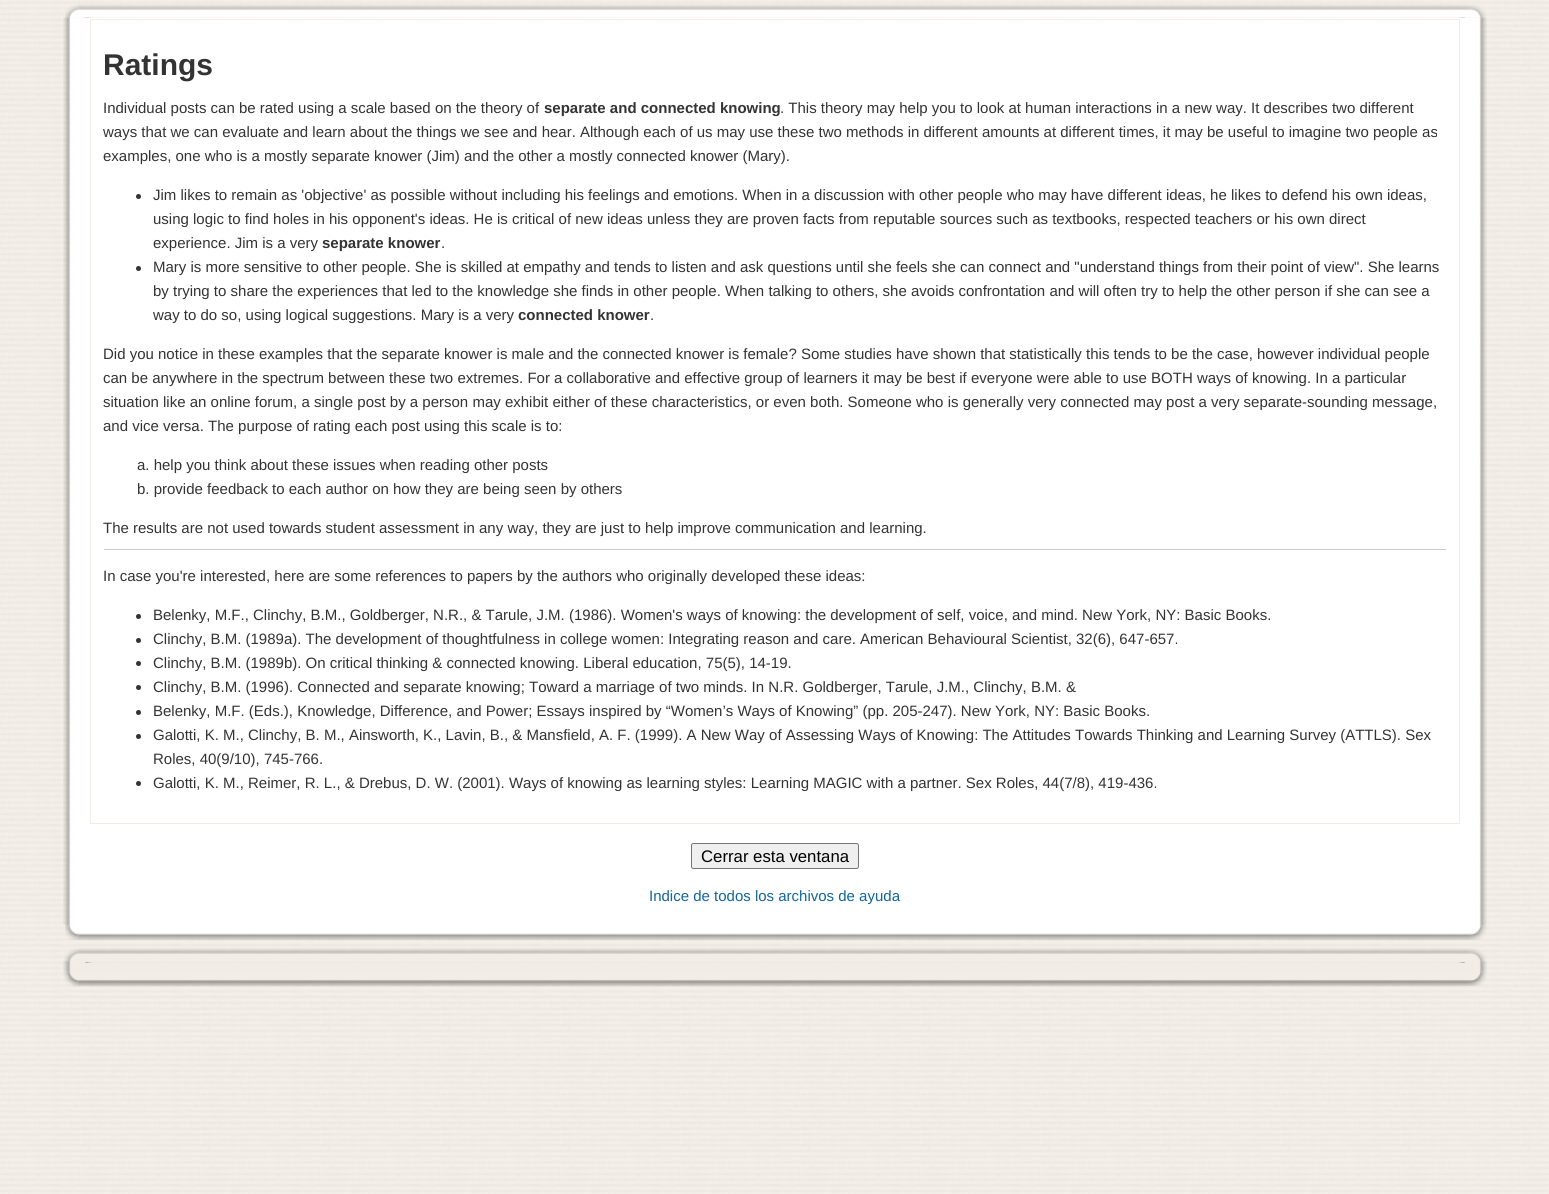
#include <cairo/cairo.h>
#include <math.h>
#include <stddef.h>


static void rounded_rect(cairo_t *cr, double x, double y, double w, double h, double r) {
  cairo_new_sub_path(cr);
  cairo_arc(cr, x + w - r, y + h - r, r, 0, M_PI / 2);
  cairo_arc(cr, x + r, y + h - r, r, M_PI / 2, M_PI);
  cairo_arc(cr, x + r, y + r, r, M_PI, 1.5 * M_PI);
  cairo_arc(cr, x + w - r, y + r, r, 1.5 * M_PI, 2 * M_PI);
  cairo_close_path(cr);
}

static void draw_image(cairo_t *cr, const char *path, double x, double y, double w, double h) {
  cairo_surface_t *image = cairo_image_surface_create_from_png(path);
  cairo_save(cr);
  cairo_set_source_surface(cr, image, x, y);
  cairo_rectangle(cr, x, y, w, h);
  cairo_fill(cr);
  cairo_restore(cr);
  cairo_surface_destroy(image);
}

static void draw(cairo_t *cr) {
  cairo_set_source_rgb(cr, 1, 1, 1);
  cairo_paint(cr);
  draw_image(cr, "images/1.png", 0, 0, 1549, 1194);
  draw_image(cr, "images/2.png", 78, 4, 1408, 14);
  draw_image(cr, "images/4.png", 63, 17, 29, 908);
  draw_image(cr, "images/3.png", 65, 4, 14, 14);
  draw_image(cr, "images/5.png", 1458, 17, 29, 908);
  cairo_set_source_rgb(cr, 1, 1, 1);
  cairo_rectangle(cr, 84, 19, 1382, 905);
  cairo_fill(cr);
  cairo_rectangle(cr, 78, 18, 1395, 1);
  cairo_fill(cr);
  cairo_rectangle(cr, 78, 924, 1395, 1);
  cairo_fill(cr);
  cairo_rectangle(cr, 90.5, 19.5, 1369, 804);
  cairo_set_source_rgb(cr, 241 / 255.0, 236 / 255.0, 230 / 255.0);
  cairo_set_line_width(cr, 1);
  cairo_stroke(cr);
  cairo_set_source_rgb(cr, 51 / 255.0, 51 / 255.0, 51 / 255.0);
  cairo_arc(cr, 138.5, 196.5, 2.5, 0, 2 * M_PI);
  cairo_fill(cr);
  cairo_arc(cr, 138.5, 268.5, 2.5, 0, 2 * M_PI);
  cairo_fill(cr);
  cairo_set_source_rgb(cr, 204 / 255.0, 204 / 255.0, 204 / 255.0);
  cairo_rectangle(cr, 104, 549, 1342, 1);
  cairo_fill(cr);
  cairo_set_source_rgb(cr, 51 / 255.0, 51 / 255.0, 51 / 255.0);
  cairo_arc(cr, 138.5, 616.5, 2.5, 0, 2 * M_PI);
  cairo_fill(cr);
  cairo_arc(cr, 138.5, 640.5, 2.5, 0, 2 * M_PI);
  cairo_fill(cr);
  cairo_arc(cr, 138.5, 663.5, 2.5, 0, 2 * M_PI);
  cairo_fill(cr);
  cairo_arc(cr, 138.5, 687.5, 2.5, 0, 2 * M_PI);
  cairo_fill(cr);
  cairo_arc(cr, 138.5, 712.5, 2.5, 0, 2 * M_PI);
  cairo_fill(cr);
  cairo_arc(cr, 138.5, 736.5, 2.5, 0, 2 * M_PI);
  cairo_fill(cr);
  cairo_arc(cr, 138.5, 783.5, 2.5, 0, 2 * M_PI);
  cairo_fill(cr);
  cairo_set_source_rgb(cr, 239 / 255.0, 239 / 255.0, 239 / 255.0);
  rounded_rect(cr, 691.5, 843.5, 167, 25, 2);
  cairo_fill_preserve(cr);
  cairo_set_source_rgb(cr, 118 / 255.0, 118 / 255.0, 118 / 255.0);
  cairo_stroke(cr);
  draw_image(cr, "images/6.png", 78, 925, 1409, 15);
  draw_image(cr, "images/7.png", 65, 925, 14, 15);
  draw_image(cr, "images/8.png", 78, 948, 1408, 14);
  draw_image(cr, "images/10.png", 63, 961, 29, 11);
  draw_image(cr, "images/11.png", 1458, 961, 29, 11);
  cairo_set_source_rgb(cr, 241 / 255.0, 236 / 255.0, 230 / 255.0);
  cairo_rectangle(cr, 78, 961, 1395, 1);
  cairo_fill(cr);
  draw_image(cr, "images/9.png", 64, 948, 15, 14);
  cairo_rectangle(cr, 78, 963, 1395, 8);
  cairo_fill(cr);
  draw_image(cr, "images/12.png", 78, 971, 1409, 16);
  draw_image(cr, "images/13.png", 63, 971, 16, 16);
  cairo_select_font_face(cr, "Liberation Sans", CAIRO_FONT_SLANT_NORMAL, CAIRO_FONT_WEIGHT_BOLD);
  cairo_set_font_size(cr, 30);
  cairo_set_source_rgb(cr, 51 / 255.0, 51 / 255.0, 51 / 255.0);
  cairo_move_to(cr, 103, 75);
  cairo_show_text(cr, "Ratings");
  cairo_select_font_face(cr, "Liberation Sans", CAIRO_FONT_SLANT_NORMAL, CAIRO_FONT_WEIGHT_NORMAL);
  cairo_set_font_size(cr, 15);
  cairo_move_to(cr, 103, 113);
  cairo_show_text(cr, "Individual posts can be rated using a scale based on the theory of");
  cairo_select_font_face(cr, "Liberation Sans", CAIRO_FONT_SLANT_NORMAL, CAIRO_FONT_WEIGHT_BOLD);
  cairo_move_to(cr, 544, 113);
  cairo_show_text(cr, "separate and connected knowing");
  cairo_select_font_face(cr, "Liberation Sans", CAIRO_FONT_SLANT_NORMAL, CAIRO_FONT_WEIGHT_NORMAL);
  cairo_move_to(cr, 780, 113);
  cairo_show_text(cr, ". This theory may help you to look at human interactions in a new way. It describes two different");
  cairo_move_to(cr, 103, 137);
  cairo_show_text(cr, "ways that we can evaluate and learn about the things we see and hear. Although each of us may use these two methods in different amounts at different times, it may be useful to imagine two people as");
  cairo_move_to(cr, 103, 161);
  cairo_show_text(cr, "examples, one who is a mostly separate knower (Jim) and the other a mostly connected knower (Mary).");
  cairo_move_to(cr, 153, 200);
  cairo_show_text(cr, "Jim likes to remain as 'objective' as possible without including his feelings and emotions. When in a discussion with other people who may have different ideas, he likes to defend his own ideas,");
  cairo_move_to(cr, 153, 224);
  cairo_show_text(cr, "using logic to find holes in his opponent's ideas. He is critical of new ideas unless they are proven facts from reputable sources such as textbooks, respected teachers or his own direct");
  cairo_move_to(cr, 153, 248);
  cairo_show_text(cr, "experience. Jim is a very");
  cairo_select_font_face(cr, "Liberation Sans", CAIRO_FONT_SLANT_NORMAL, CAIRO_FONT_WEIGHT_BOLD);
  cairo_move_to(cr, 322, 248);
  cairo_show_text(cr, "separate knower");
  cairo_select_font_face(cr, "Liberation Sans", CAIRO_FONT_SLANT_NORMAL, CAIRO_FONT_WEIGHT_NORMAL);
  cairo_move_to(cr, 441, 248);
  cairo_show_text(cr, ".");
  cairo_move_to(cr, 153, 272);
  cairo_show_text(cr, "Mary is more sensitive to other people. She is skilled at empathy and tends to listen and ask questions until she feels she can connect and \"understand things from their point of view\". She learns");
  cairo_move_to(cr, 153, 296);
  cairo_show_text(cr, "by trying to share the experiences that led to the knowledge she finds in other people. When talking to others, she avoids confrontation and will often try to help the other person if she can see a");
  cairo_move_to(cr, 153, 320);
  cairo_show_text(cr, "way to do so, using logical suggestions. Mary is a very");
  cairo_select_font_face(cr, "Liberation Sans", CAIRO_FONT_SLANT_NORMAL, CAIRO_FONT_WEIGHT_BOLD);
  cairo_move_to(cr, 518, 320);
  cairo_show_text(cr, "connected knower");
  cairo_select_font_face(cr, "Liberation Sans", CAIRO_FONT_SLANT_NORMAL, CAIRO_FONT_WEIGHT_NORMAL);
  cairo_move_to(cr, 650, 320);
  cairo_show_text(cr, ".");
  cairo_move_to(cr, 103, 359);
  cairo_show_text(cr, "Did you notice in these examples that the separate knower is male and the connected knower is female? Some studies have shown that statistically this tends to be the case, however individual people");
  cairo_move_to(cr, 103, 383);
  cairo_show_text(cr, "can be anywhere in the spectrum between these two extremes. For a collaborative and effective group of learners it may be best if everyone were able to use BOTH ways of knowing. In a particular");
  cairo_move_to(cr, 103, 407);
  cairo_show_text(cr, "situation like an online forum, a single post by a person may exhibit either of these characteristics, or even both. Someone who is generally very connected may post a very separate-sounding message,");
  cairo_move_to(cr, 103, 431);
  cairo_show_text(cr, "and vice versa. The purpose of rating each post using this scale is to:");
  cairo_move_to(cr, 137, 470);
  cairo_show_text(cr, "a. help you think about these issues when reading other posts");
  cairo_move_to(cr, 137, 494);
  cairo_show_text(cr, "b. provide feedback to each author on how they are being seen by others");
  cairo_move_to(cr, 103, 533);
  cairo_show_text(cr, "The results are not used towards student assessment in any way, they are just to help improve communication and learning.");
  cairo_move_to(cr, 103, 581);
  cairo_show_text(cr, "In case you're interested, here are some references to papers by the authors who originally developed these ideas:");
  cairo_move_to(cr, 153, 620);
  cairo_show_text(cr, "Belenky, M.F., Clinchy, B.M., Goldberger, N.R., & Tarule, J.M. (1986). Women's ways of knowing: the development of self, voice, and mind. New York, NY: Basic Books.");
  cairo_move_to(cr, 153, 644);
  cairo_show_text(cr, "Clinchy, B.M. (1989a). The development of thoughtfulness in college women: Integrating reason and care. American Behavioural Scientist, 32(6), 647-657.");
  cairo_move_to(cr, 153, 668);
  cairo_show_text(cr, "Clinchy, B.M. (1989b). On critical thinking & connected knowing. Liberal education, 75(5), 14-19.");
  cairo_move_to(cr, 153, 692);
  cairo_show_text(cr, "Clinchy, B.M. (1996). Connected and separate knowing; Toward a marriage of two minds. In N.R. Goldberger, Tarule, J.M., Clinchy, B.M. &");
  cairo_move_to(cr, 153, 716);
  cairo_show_text(cr, "Belenky, M.F. (Eds.), Knowledge, Difference, and Power; Essays inspired by “Women’s Ways of Knowing” (pp. 205-247). New York, NY: Basic Books.");
  cairo_move_to(cr, 153, 740);
  cairo_show_text(cr, "Galotti, K. M., Clinchy, B. M., Ainsworth, K., Lavin, B., & Mansfield, A. F. (1999). A New Way of Assessing Ways of Knowing: The Attitudes Towards Thinking and Learning Survey (ATTLS). Sex");
  cairo_move_to(cr, 153, 764);
  cairo_show_text(cr, "Roles, 40(9/10), 745-766.");
  cairo_move_to(cr, 153, 788);
  cairo_show_text(cr, "Galotti, K. M., Reimer, R. L., & Drebus, D. W. (2001). Ways of knowing as learning styles: Learning MAGIC with a partner. Sex Roles, 44(7/8), 419-436.");
  cairo_set_font_size(cr, 16.75);
  cairo_set_source_rgb(cr, 0, 0, 0);
  cairo_move_to(cr, 701, 862);
  cairo_show_text(cr, "Cerrar esta ventana");
  cairo_set_font_size(cr, 15);
  cairo_set_source_rgb(cr, 17 / 255.0, 102 / 255.0, 153 / 255.0);
  cairo_move_to(cr, 649, 901);
  cairo_show_text(cr, "Indice de todos los archivos de ayuda");
}

int main(void) {
  cairo_surface_t *surface = cairo_image_surface_create(CAIRO_FORMAT_RGB24, 1549, 1194);
  cairo_t *cr = cairo_create(surface);
  cairo_font_options_t *options = cairo_font_options_create();
  cairo_font_options_set_hint_metrics(options, CAIRO_HINT_METRICS_OFF);
  cairo_font_options_set_hint_style(options, CAIRO_HINT_STYLE_NONE);
  cairo_set_font_options(cr, options);
  cairo_set_miter_limit(cr, 4);
  draw(cr);
  cairo_surface_write_to_png(surface, "out.png");
  cairo_font_options_destroy(options);
  cairo_destroy(cr);
  cairo_surface_destroy(surface);
  return 0;
}
